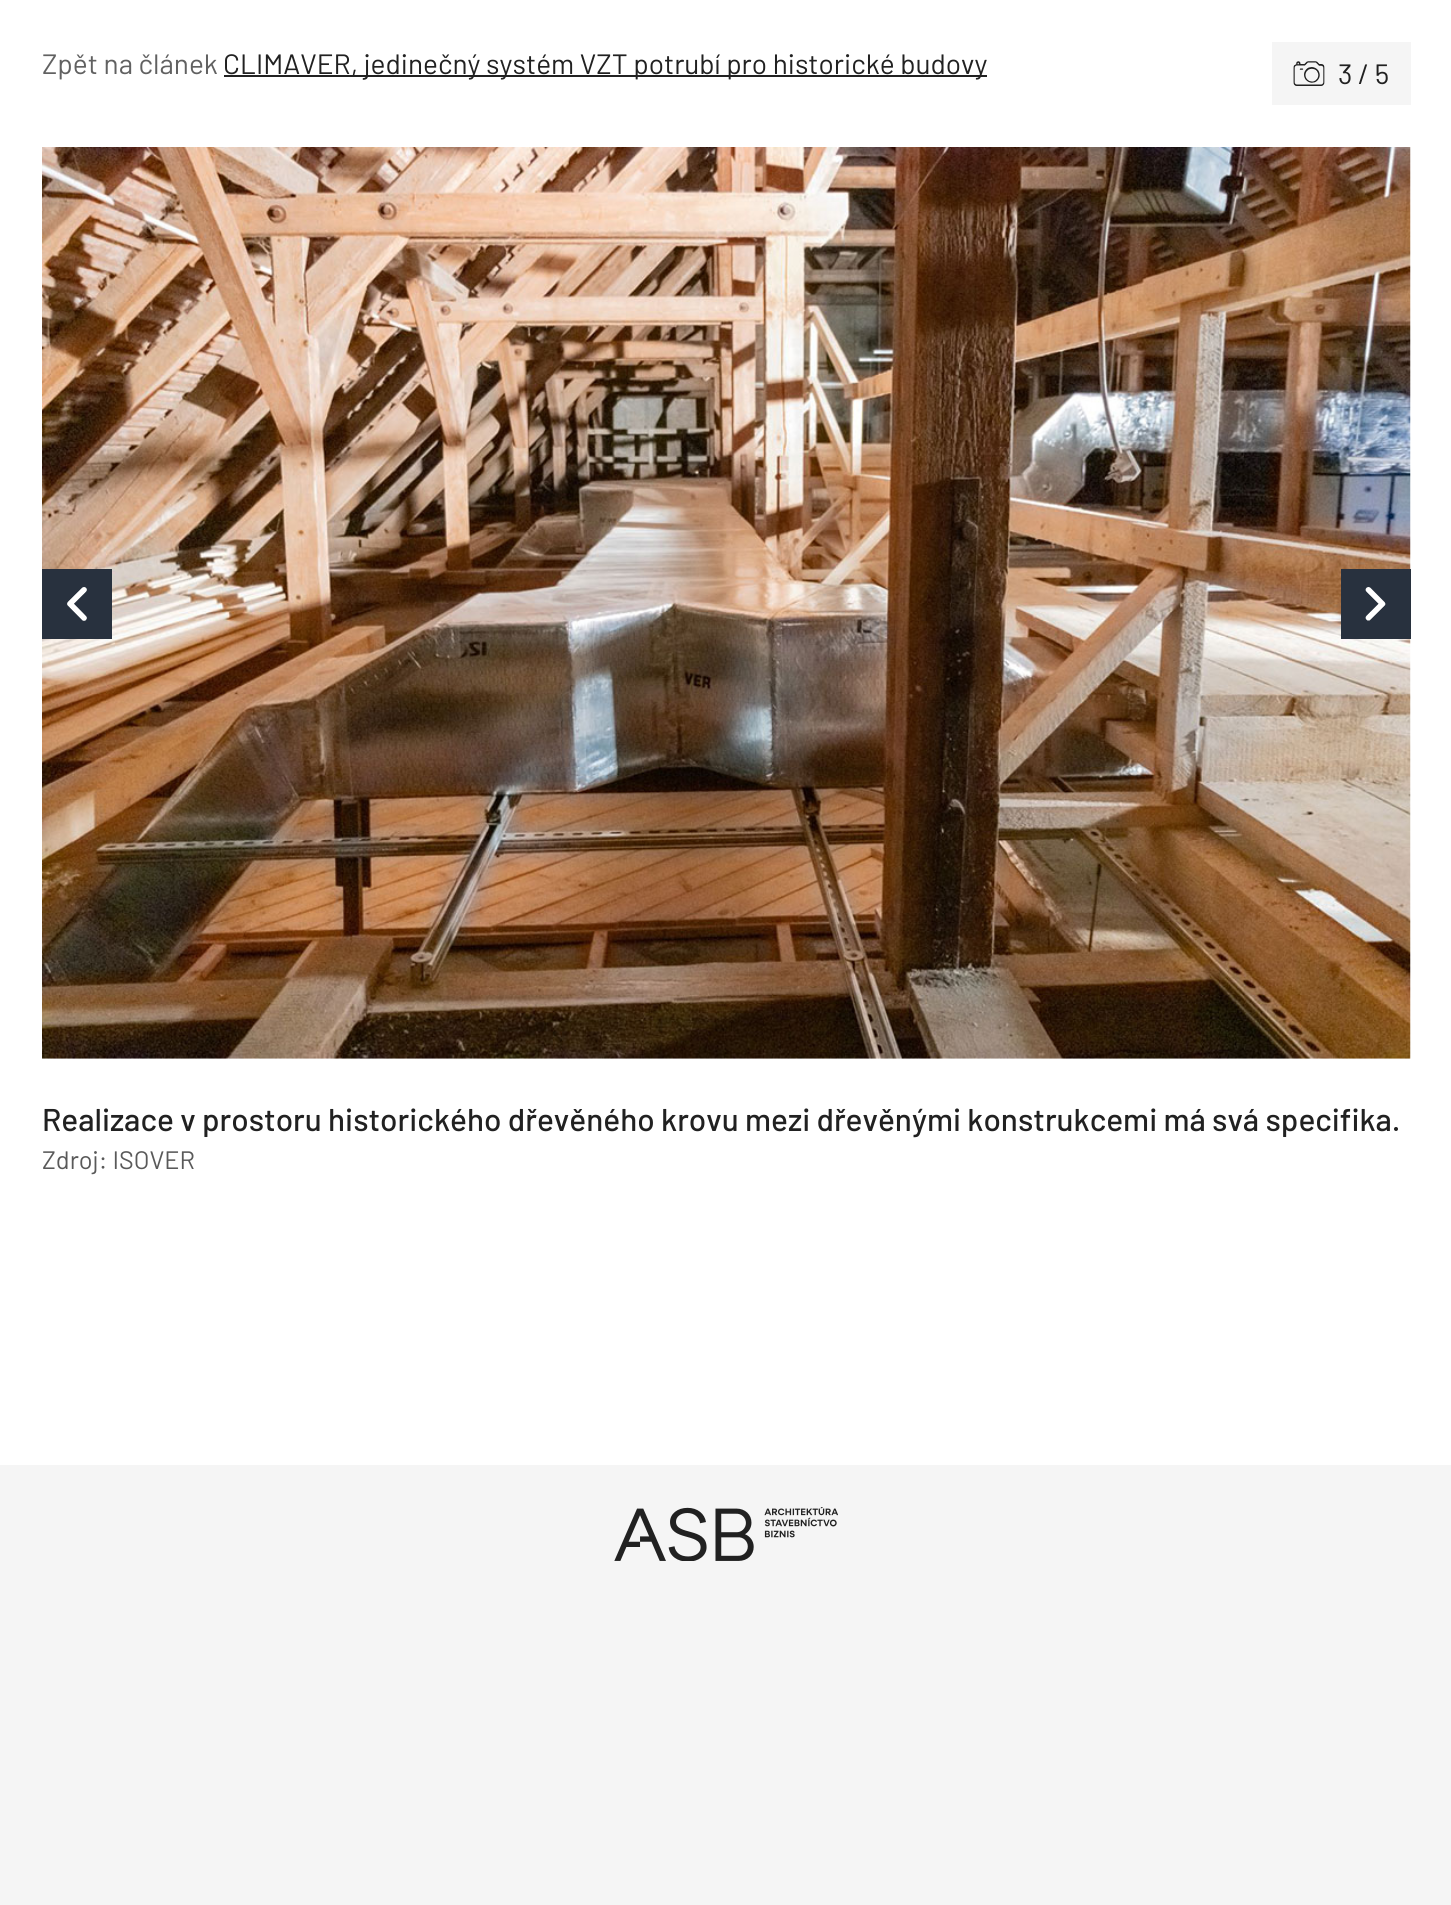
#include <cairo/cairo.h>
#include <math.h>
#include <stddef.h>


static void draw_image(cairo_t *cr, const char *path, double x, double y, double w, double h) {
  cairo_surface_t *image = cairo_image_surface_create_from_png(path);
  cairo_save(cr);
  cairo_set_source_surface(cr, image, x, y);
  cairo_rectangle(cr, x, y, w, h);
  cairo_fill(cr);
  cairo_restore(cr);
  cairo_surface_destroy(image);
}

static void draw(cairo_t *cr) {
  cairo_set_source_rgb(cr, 1, 1, 1);
  cairo_paint(cr);
  cairo_set_source_rgb(cr, 33 / 255.0, 33 / 255.0, 33 / 255.0);
  cairo_rectangle(cr, 224, 75, 763, 2);
  cairo_fill(cr);
  cairo_set_source_rgb(cr, 245 / 255.0, 245 / 255.0, 245 / 255.0);
  cairo_rectangle(cr, 1272, 42, 139, 63);
  cairo_fill(cr);
  draw_image(cr, "images/1.png", 1293, 61, 32, 25);
  draw_image(cr, "images/2.png", 42, 147, 1369, 912);
  cairo_set_source_rgb(cr, 40 / 255.0, 49 / 255.0, 62 / 255.0);
  cairo_rectangle(cr, 42, 569, 70, 70);
  cairo_fill(cr);
  draw_image(cr, "images/3.png", 67, 587, 20, 34);
  cairo_rectangle(cr, 1341, 569, 70, 70);
  cairo_fill(cr);
  draw_image(cr, "images/4.png", 1365, 587, 21, 34);
  cairo_set_source_rgb(cr, 245 / 255.0, 245 / 255.0, 245 / 255.0);
  cairo_rectangle(cr, 0, 1465, 1451, 440);
  cairo_fill(cr);
  draw_image(cr, "images/5.png", 614, 1507, 224, 54);
  cairo_select_font_face(cr, "Barlow", CAIRO_FONT_SLANT_NORMAL, CAIRO_FONT_WEIGHT_NORMAL);
  cairo_set_font_size(cr, 28);
  cairo_set_source_rgb(cr, 97 / 255.0, 97 / 255.0, 97 / 255.0);
  cairo_move_to(cr, 42, 74);
  cairo_show_text(cr, "Zpět na článek");
  cairo_set_source_rgb(cr, 33 / 255.0, 33 / 255.0, 33 / 255.0);
  cairo_move_to(cr, 223, 74);
  cairo_show_text(cr, "CLIMAVER, jedinečný systém VZT potrubí pro historické budovy");
  cairo_move_to(cr, 1338, 84);
  cairo_show_text(cr, "3 / 5");
  cairo_select_font_face(cr, "Barlow Medium", CAIRO_FONT_SLANT_NORMAL, CAIRO_FONT_WEIGHT_NORMAL);
  cairo_set_font_size(cr, 31.5);
  cairo_move_to(cr, 42, 1131);
  cairo_show_text(cr, "Realizace v prostoru historického dřevěného krovu mezi dřevěnými konstrukcemi má svá specifika.");
  cairo_select_font_face(cr, "Barlow", CAIRO_FONT_SLANT_NORMAL, CAIRO_FONT_WEIGHT_NORMAL);
  cairo_set_font_size(cr, 25.25);
  cairo_set_source_rgb(cr, 89 / 255.0, 89 / 255.0, 89 / 255.0);
  cairo_move_to(cr, 42, 1169);
  cairo_show_text(cr, "Zdroj: ISOVER");
}

int main(void) {
  cairo_surface_t *surface = cairo_image_surface_create(CAIRO_FORMAT_RGB24, 1451, 1905);
  cairo_t *cr = cairo_create(surface);
  cairo_font_options_t *options = cairo_font_options_create();
  cairo_font_options_set_hint_metrics(options, CAIRO_HINT_METRICS_OFF);
  cairo_font_options_set_hint_style(options, CAIRO_HINT_STYLE_NONE);
  cairo_set_font_options(cr, options);
  cairo_set_miter_limit(cr, 4);
  draw(cr);
  cairo_surface_write_to_png(surface, "out.png");
  cairo_font_options_destroy(options);
  cairo_destroy(cr);
  cairo_surface_destroy(surface);
  return 0;
}
